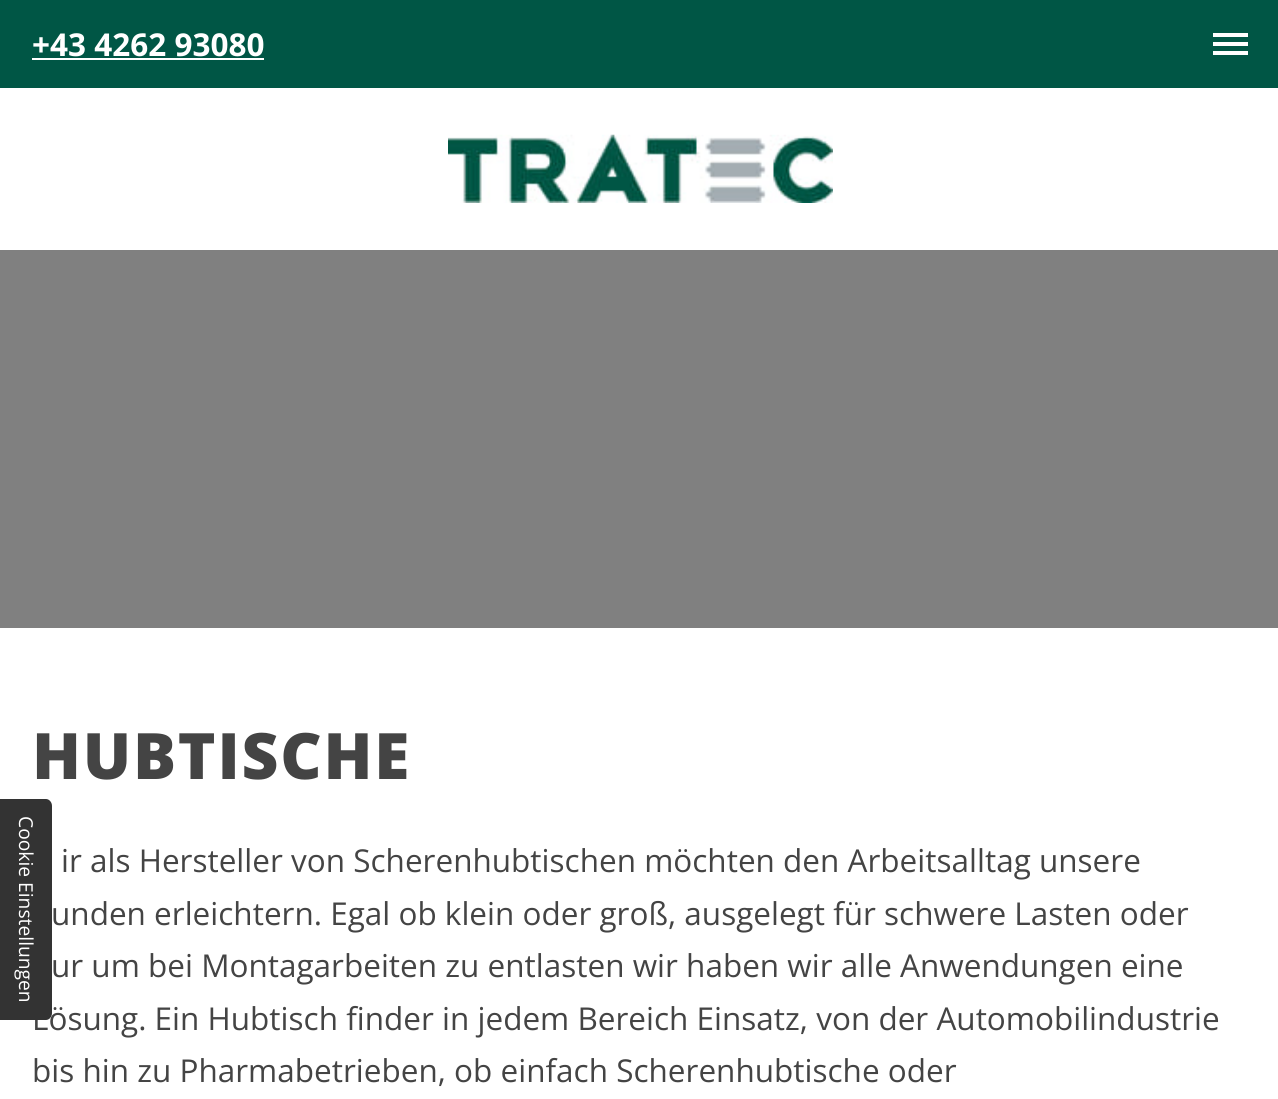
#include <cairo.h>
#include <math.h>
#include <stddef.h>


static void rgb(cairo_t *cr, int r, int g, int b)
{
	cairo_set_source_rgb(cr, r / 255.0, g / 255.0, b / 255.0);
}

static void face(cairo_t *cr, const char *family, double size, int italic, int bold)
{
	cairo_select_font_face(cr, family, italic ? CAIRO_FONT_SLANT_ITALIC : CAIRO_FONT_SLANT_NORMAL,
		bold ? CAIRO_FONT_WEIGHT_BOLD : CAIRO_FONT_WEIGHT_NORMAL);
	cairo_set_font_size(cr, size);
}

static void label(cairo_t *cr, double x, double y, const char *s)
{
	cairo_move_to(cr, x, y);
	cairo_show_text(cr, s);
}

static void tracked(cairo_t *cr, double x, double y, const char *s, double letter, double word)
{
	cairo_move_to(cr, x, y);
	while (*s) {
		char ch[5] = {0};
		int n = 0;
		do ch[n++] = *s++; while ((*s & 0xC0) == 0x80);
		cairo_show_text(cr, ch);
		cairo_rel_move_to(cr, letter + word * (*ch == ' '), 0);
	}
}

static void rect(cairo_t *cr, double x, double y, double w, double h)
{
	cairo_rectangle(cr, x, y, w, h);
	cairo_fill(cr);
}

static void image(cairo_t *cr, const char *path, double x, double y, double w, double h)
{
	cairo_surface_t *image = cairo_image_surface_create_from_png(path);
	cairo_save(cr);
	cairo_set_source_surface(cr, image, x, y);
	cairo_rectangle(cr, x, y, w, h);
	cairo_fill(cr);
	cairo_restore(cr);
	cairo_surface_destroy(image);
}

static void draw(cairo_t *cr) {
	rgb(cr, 255, 255, 255);
	cairo_paint(cr);
	rgb(cr, 128, 128, 128);
	rect(cr, 0, 250, 1278, 378);
	rgb(cr, 0, 86, 69);
	rect(cr, 0, 0, 1278, 88);
	face(cr, "Open Sans", 31.5, 0, 1);
	rgb(cr, 255, 255, 255);
	label(cr, 32, 56, "+43 4262 93080");
	rect(cr, 32, 58, 232, 2);
	rect(cr, 1213, 42, 35, 4);
	rect(cr, 1213, 33, 35, 4);
	rect(cr, 1213, 51, 35, 4);
	image(cr, "image0.png", 448, 134, 385, 69);
	face(cr, "Open Sans", 31.5, 0, 0);
	rgb(cr, 68, 68, 68);
	label(cr, 32, 1030, "Lösung. Ein Hubtisch finder in jedem Bereich Einsatz, von der Automobilindustrie");
	rgb(cr, 51, 51, 51);
	cairo_new_path(cr);
	cairo_move_to(cr, 52, 806);
	cairo_line_to(cr, 52, 1013);
	cairo_curve_to(cr, 52, 1017, 49, 1020, 46, 1020);
	cairo_line_to(cr, 0, 1020);
	cairo_line_to(cr, 0, 799);
	cairo_line_to(cr, 46, 799);
	cairo_curve_to(cr, 49, 799, 52, 802, 52, 806);
	cairo_close_path(cr);
	cairo_fill(cr);
	face(cr, "Open Sans", 19.25, 0, 0);
	rgb(cr, 255, 255, 255);
	cairo_save(cr);
	cairo_translate(cr, 19, 816);
	cairo_rotate(cr, 90 * M_PI / 180);
	label(cr, 0, 0, "Cookie Einstellungen");
	cairo_restore(cr);
	face(cr, "Open Sans ExtraBold", 64, 0, 0);
	rgb(cr, 68, 68, 68);
	tracked(cr, 32, 779, "HUBTISCHE", 1.75, 0);
	face(cr, "Open Sans", 31.5, 0, 0);
	label(cr, 61, 872, "ir als Hersteller von Scherenhubtischen möchten den Arbeitsalltag unsere");
	label(cr, 51, 925, "unden erleichtern. Egal ob klein oder groß, ausgelegt für schwere Lasten oder");
	label(cr, 51, 977, "ur um bei Montagarbeiten zu entlasten wir haben wir alle Anwendungen eine");
	label(cr, 32, 1082, "bis hin zu Pharmabetrieben, ob einfach Scherenhubtische oder");
}

int main(void) {
	cairo_surface_t *surface = cairo_image_surface_create(CAIRO_FORMAT_RGB24, 1278, 1099);
	cairo_t *cr = cairo_create(surface);
	cairo_font_options_t *options = cairo_font_options_create();
	cairo_font_options_set_hint_metrics(options, CAIRO_HINT_METRICS_OFF);
	cairo_font_options_set_hint_style(options, CAIRO_HINT_STYLE_NONE);
	cairo_set_font_options(cr, options);
	cairo_set_miter_limit(cr, 4);
	draw(cr);
	cairo_surface_write_to_png(surface, "render.png");
	cairo_font_options_destroy(options);
	cairo_destroy(cr);
	cairo_surface_destroy(surface);
	return 0;
}
